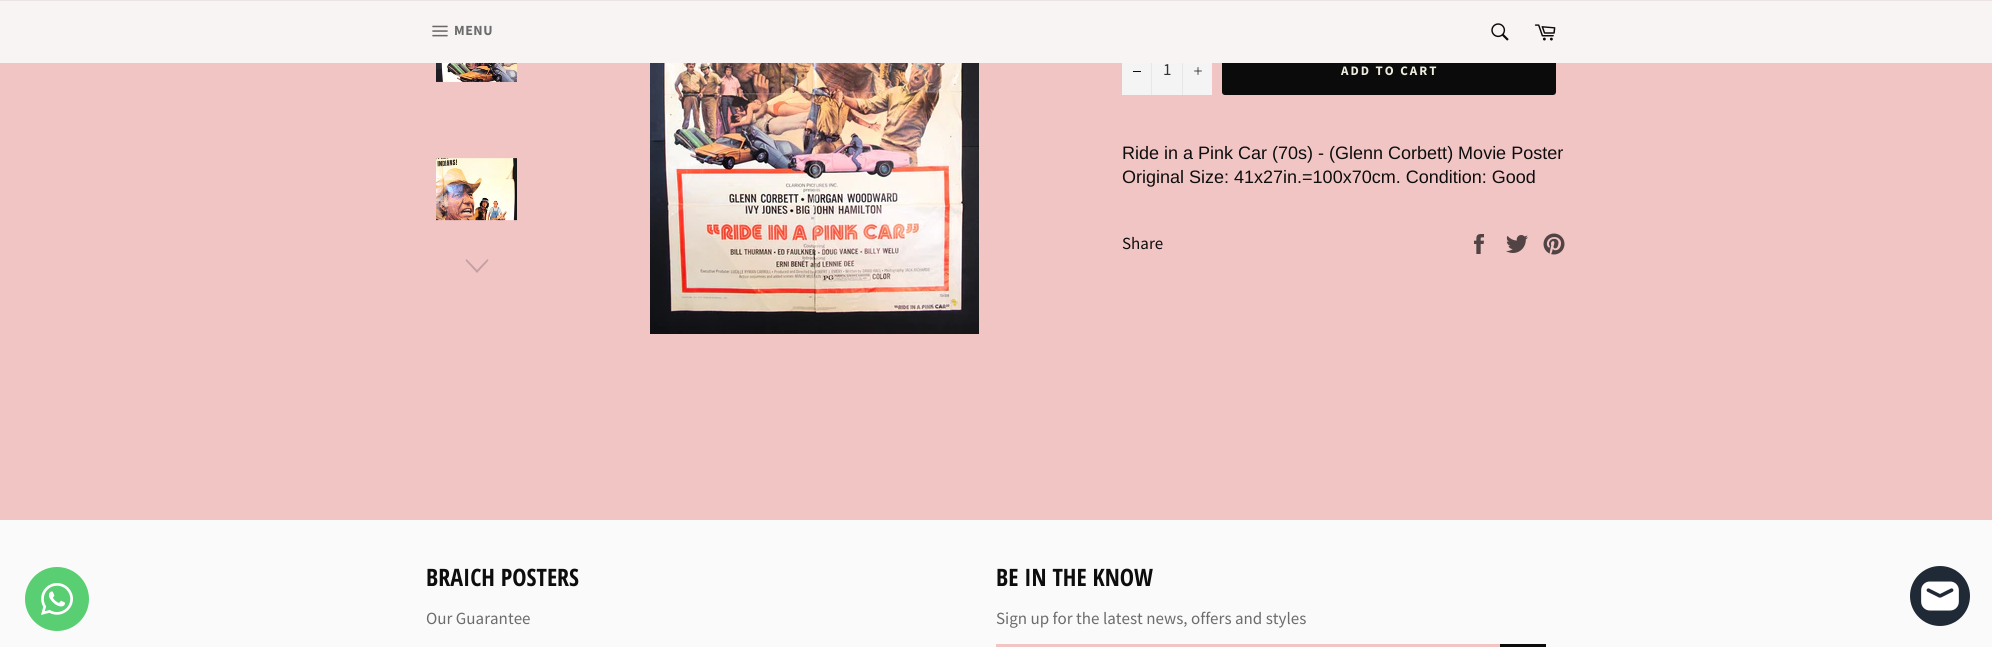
#include <cairo.h>
#include <math.h>
#include <stddef.h>


static void rgb(cairo_t *cr, int r, int g, int b)
{
	cairo_set_source_rgb(cr, r / 255.0, g / 255.0, b / 255.0);
}

static void face(cairo_t *cr, const char *family, double size, int italic, int bold)
{
	cairo_select_font_face(cr, family, italic ? CAIRO_FONT_SLANT_ITALIC : CAIRO_FONT_SLANT_NORMAL,
		bold ? CAIRO_FONT_WEIGHT_BOLD : CAIRO_FONT_WEIGHT_NORMAL);
	cairo_set_font_size(cr, size);
}

static void label(cairo_t *cr, double x, double y, const char *s)
{
	cairo_move_to(cr, x, y);
	cairo_show_text(cr, s);
}

static void tracked(cairo_t *cr, double x, double y, const char *s, double letter, double word)
{
	cairo_move_to(cr, x, y);
	while (*s) {
		char ch[5] = {0};
		int n = 0;
		do ch[n++] = *s++; while ((*s & 0xC0) == 0x80);
		cairo_show_text(cr, ch);
		cairo_rel_move_to(cr, letter + word * (*ch == ' '), 0);
	}
}

static void rect(cairo_t *cr, double x, double y, double w, double h)
{
	cairo_rectangle(cr, x, y, w, h);
	cairo_fill(cr);
}

static void rrect(cairo_t *cr, double x, double y, double w, double h, double r)
{
	cairo_new_sub_path(cr);
	cairo_arc(cr, x + w - r, y + h - r, r, 0, M_PI / 2);
	cairo_arc(cr, x + r, y + h - r, r, M_PI / 2, M_PI);
	cairo_arc(cr, x + r, y + r, r, M_PI, 1.5 * M_PI);
	cairo_arc(cr, x + w - r, y + r, r, 1.5 * M_PI, 2 * M_PI);
	cairo_close_path(cr);
}

static void image(cairo_t *cr, const char *path, double x, double y, double w, double h)
{
	cairo_surface_t *image = cairo_image_surface_create_from_png(path);
	cairo_save(cr);
	cairo_set_source_surface(cr, image, x, y);
	cairo_rectangle(cr, x, y, w, h);
	cairo_fill(cr);
	cairo_restore(cr);
	cairo_surface_destroy(image);
}

static void draw(cairo_t *cr) {
	rgb(cr, 242, 197, 197);
	cairo_paint(cr);
	rgb(cr, 12, 11, 11);
	rrect(cr, 1222, 47, 334, 48, 3);
	cairo_fill(cr);
	rgb(cr, 248, 244, 244);
	rect(cr, 0, 1, 1992, 62);
	rgb(cr, 238, 228, 228);
	rect(cr, 0, 0, 1992, 1);
	image(cr, "image0.png", 432, 25, 16, 12);
	face(cr, "Source Sans Pro", 14, 0, 1);
	rgb(cr, 108, 108, 108);
	tracked(cr, 454, 35, "MENU", 0.5, 0);
	image(cr, "image1.png", 1491, 23, 18, 18);
	image(cr, "image2.png", 1534, 24, 22, 17);
	rgb(cr, 250, 250, 250);
	rect(cr, 0, 520, 1992, 127);
	rgb(cr, 89, 206, 114);
	cairo_arc(cr, 57, 599, 32, 0, 2 * M_PI);
	cairo_fill(cr);
	image(cr, "image3.png", 41, 583, 32, 32);
	image(cr, "image4.png", 436, 63, 81, 19);
	image(cr, "image5.png", 436, 158, 81, 63);
	rgb(cr, 196, 160, 160);
	cairo_new_path(cr);
	cairo_move_to(cr, 487.5, 259);
	cairo_line_to(cr, 488.5, 260.5);
	cairo_line_to(cr, 477, 273);
	cairo_line_to(cr, 465.5, 260.5);
	cairo_line_to(cr, 466.5, 259);
	cairo_line_to(cr, 477, 270);
	cairo_close_path(cr);
	cairo_fill(cr);
	image(cr, "image6.png", 650, 63, 329, 271);
	rgb(cr, 244, 244, 244);
	rect(cr, 1122, 63, 90, 32);
	rgb(cr, 231, 231, 231);
	rect(cr, 1151, 63, 1, 32);
	rgb(cr, 13, 13, 13);
	rect(cr, 1133, 71, 8, 1);
	face(cr, "Source Sans Pro", 17, 0, 0);
	rgb(cr, 51, 51, 51);
	label(cr, 1163, 75, "1");
	rgb(cr, 231, 231, 231);
	rect(cr, 1182, 63, 1, 32);
	image(cr, "image7.png", 1194, 67, 8, 8);
	face(cr, "Source Sans Pro", 13, 0, 1);
	rgb(cr, 237, 236, 221);
	tracked(cr, 1341, 75, "ADD TO CART", 2, 0);
	face(cr, "Liberation Sans", 18, 0, 0);
	rgb(cr, 13, 13, 13);
	label(cr, 1122, 159, "Ride in a Pink Car (70s) - (Glenn Corbett) Movie Poster");
	label(cr, 1122, 183, "Original Size: 41x27in.=100x70cm. Condition: Good");
	face(cr, "Source Sans Pro", 17, 0, 0);
	label(cr, 1122, 249, "Share");
	image(cr, "image8.png", 1474, 234, 10, 20);
	image(cr, "image9.png", 1506, 235, 22, 18);
	image(cr, "image10.png", 1543, 233, 22, 22);
	face(cr, "Open Sans Condensed", 24, 0, 1);
	label(cr, 426, 586, "BRAICH POSTERS");
	face(cr, "Source Sans Pro", 17, 0, 0);
	rgb(cr, 108, 108, 108);
	label(cr, 426, 624, "Our Guarantee");
	face(cr, "Open Sans Condensed", 24, 0, 1);
	rgb(cr, 13, 13, 13);
	label(cr, 996, 586, "BE IN THE KNOW");
	face(cr, "Source Sans Pro", 17, 0, 0);
	rgb(cr, 108, 108, 108);
	label(cr, 996, 624, "Sign up for the latest news, offers and styles");
	rgb(cr, 242, 197, 197);
	rect(cr, 996, 644, 504, 3);
	rgb(cr, 12, 11, 11);
	rect(cr, 1500, 644, 46, 3);
	rgb(cr, 32, 42, 54);
	cairo_new_path(cr);
	cairo_arc(cr, 1940, 596, 30, 0, 2 * M_PI);
	cairo_fill(cr);
	image(cr, "image11.png", 1921, 581, 38, 30);
}

int main(void) {
	cairo_surface_t *surface = cairo_image_surface_create(CAIRO_FORMAT_RGB24, 1992, 647);
	cairo_t *cr = cairo_create(surface);
	cairo_font_options_t *options = cairo_font_options_create();
	cairo_font_options_set_hint_metrics(options, CAIRO_HINT_METRICS_OFF);
	cairo_font_options_set_hint_style(options, CAIRO_HINT_STYLE_NONE);
	cairo_set_font_options(cr, options);
	cairo_set_miter_limit(cr, 4);
	draw(cr);
	cairo_surface_write_to_png(surface, "render.png");
	cairo_font_options_destroy(options);
	cairo_destroy(cr);
	cairo_surface_destroy(surface);
	return 0;
}
